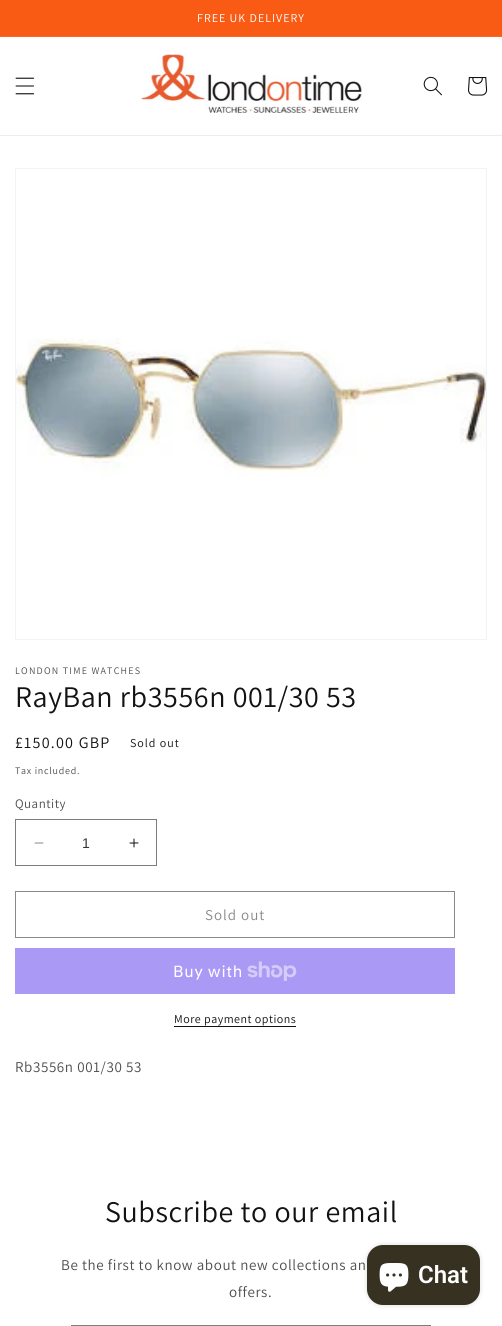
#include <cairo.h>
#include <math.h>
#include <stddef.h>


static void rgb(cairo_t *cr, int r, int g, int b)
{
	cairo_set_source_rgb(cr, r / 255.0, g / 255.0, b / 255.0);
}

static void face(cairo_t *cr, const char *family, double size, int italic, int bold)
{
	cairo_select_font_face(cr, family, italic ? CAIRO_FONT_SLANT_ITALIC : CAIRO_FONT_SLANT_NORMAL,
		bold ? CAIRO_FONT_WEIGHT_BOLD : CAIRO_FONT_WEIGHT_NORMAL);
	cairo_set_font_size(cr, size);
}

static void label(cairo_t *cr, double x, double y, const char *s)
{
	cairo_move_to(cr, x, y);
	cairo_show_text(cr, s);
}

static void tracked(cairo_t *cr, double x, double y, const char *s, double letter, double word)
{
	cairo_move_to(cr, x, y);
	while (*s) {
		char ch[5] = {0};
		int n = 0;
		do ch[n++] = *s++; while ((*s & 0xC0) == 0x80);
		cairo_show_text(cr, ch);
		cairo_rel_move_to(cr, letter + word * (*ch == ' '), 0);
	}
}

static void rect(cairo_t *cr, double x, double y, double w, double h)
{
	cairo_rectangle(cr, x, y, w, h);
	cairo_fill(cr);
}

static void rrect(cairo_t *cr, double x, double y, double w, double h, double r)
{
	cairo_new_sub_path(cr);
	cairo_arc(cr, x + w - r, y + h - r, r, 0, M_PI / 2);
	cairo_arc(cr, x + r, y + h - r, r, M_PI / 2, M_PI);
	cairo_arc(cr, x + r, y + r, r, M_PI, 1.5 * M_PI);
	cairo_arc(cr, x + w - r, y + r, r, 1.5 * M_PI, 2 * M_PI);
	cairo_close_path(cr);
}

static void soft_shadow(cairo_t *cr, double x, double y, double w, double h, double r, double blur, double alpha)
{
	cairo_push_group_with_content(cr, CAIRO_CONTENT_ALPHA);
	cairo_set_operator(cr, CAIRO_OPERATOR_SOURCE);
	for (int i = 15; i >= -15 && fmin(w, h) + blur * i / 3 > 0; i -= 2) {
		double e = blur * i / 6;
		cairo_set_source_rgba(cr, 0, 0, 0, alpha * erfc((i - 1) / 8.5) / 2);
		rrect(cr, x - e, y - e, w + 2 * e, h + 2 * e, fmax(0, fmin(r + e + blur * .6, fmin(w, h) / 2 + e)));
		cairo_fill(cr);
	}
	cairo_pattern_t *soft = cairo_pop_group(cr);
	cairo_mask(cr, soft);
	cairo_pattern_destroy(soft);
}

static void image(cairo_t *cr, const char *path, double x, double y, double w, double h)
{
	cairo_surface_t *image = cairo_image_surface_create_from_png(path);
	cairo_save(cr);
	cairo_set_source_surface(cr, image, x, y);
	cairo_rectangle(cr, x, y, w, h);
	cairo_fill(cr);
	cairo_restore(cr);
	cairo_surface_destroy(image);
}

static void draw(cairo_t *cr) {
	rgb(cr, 255, 255, 255);
	cairo_paint(cr);
	rgb(cr, 249, 91, 20);
	rect(cr, 0, 0, 502, 36);
	rgb(cr, 249, 104, 39);
	rect(cr, 0, 36, 502, 1);
	face(cr, "Assistant", 12, 0, 0);
	rgb(cr, 255, 255, 255);
	tracked(cr, 197, 22, "FREE UK DELIVERY", 1, 0);
	rgb(cr, 236, 236, 236);
	rect(cr, 0, 135, 502, 1);
	image(cr, "image0.png", 15, 77, 20, 18);
	image(cr, "image1.png", 141, 54, 221, 59);
	image(cr, "image2.png", 423, 76, 19, 20);
	image(cr, "image3.png", 468, 77, 20, 19);
	cairo_rectangle(cr, 15.5, 168.5, 471, 471);
	rgb(cr, 243, 243, 243);
	cairo_set_line_width(cr, 1);
	cairo_stroke(cr);
	image(cr, "image4.png", 16, 338, 470, 139);
	face(cr, "Assistant", 10, 0, 0);
	rgb(cr, 77, 77, 77);
	tracked(cr, 15, 674, "LONDON TIME WATCHES", 1.25, 0);
	face(cr, "Assistant", 30, 0, 0);
	rgb(cr, 18, 18, 18);
	tracked(cr, 15, 707, "RayBan rb3556n 001/30 53", 0.6, 0);
	face(cr, "Assistant", 16, 0, 0);
	tracked(cr, 15, 748, "£150.00 GBP", 1.25, 0);
	face(cr, "Assistant", 12, 0, 0);
	tracked(cr, 130, 747, "Sold out", 1, 0);
	face(cr, "Assistant", 10, 0, 0);
	rgb(cr, 77, 77, 77);
	tracked(cr, 15, 774, "Tax included.", 0.75, 0);
	face(cr, "Assistant", 13, 0, 0);
	tracked(cr, 15, 808, "Quantity", 0.5, 0);
	image(cr, "image5.png", 34, 842, 10, 2);
	image(cr, "image6.png", 129, 838, 10, 10);
	cairo_rectangle(cr, 15.5, 819.5, 141, 46);
	rgb(cr, 125, 125, 125);
	cairo_stroke(cr);
	face(cr, "Liberation Sans", 14, 0, 0);
	rgb(cr, 54, 54, 54);
	label(cr, 82, 848, "1");
	cairo_rectangle(cr, 15.5, 891.5, 439, 46);
	rgb(cr, 137, 137, 137);
	cairo_stroke(cr);
	face(cr, "Assistant", 15, 0, 0);
	tracked(cr, 205, 920, "Sold out", 1, 0);
	rgb(cr, 170, 153, 245);
	rect(cr, 15, 948, 440, 46);
	face(cr, "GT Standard", 16, 0, 0);
	rgb(cr, 255, 255, 255);
	tracked(cr, 173, 977, "Buy with", 0.6, 0);
	image(cr, "image7.png", 247, 961, 50, 20);
	face(cr, "Assistant", 12, 0, 0);
	rgb(cr, 18, 18, 18);
	tracked(cr, 174, 1023, "More payment options", 0.5, 0);
	rect(cr, 174, 1026, 122, 1);
	face(cr, "Assistant", 15, 0, 0);
	rgb(cr, 77, 77, 77);
	tracked(cr, 15, 1072, "Rb3556n 001/30 53", 0.6, 0);
	face(cr, "Assistant", 30, 0, 0);
	rgb(cr, 18, 18, 18);
	tracked(cr, 105, 1222, "Subscribe to our email", 0.6, 0);
	face(cr, "Assistant", 15, 0, 0);
	rgb(cr, 77, 77, 77);
	tracked(cr, 61, 1270, "Be the first to know about new collections an", 0.6, 0);
	tracked(cr, 229, 1297, "offers.", 0.6, 0);
	cairo_rectangle(cr, 71.5, 1325.5, 359, 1);
	rgb(cr, 125, 125, 125);
	cairo_stroke(cr);
	rgb(cr, 0, 0, 0);
	soft_shadow(cr, 367, 1245, 113, 60, 16, 2.5, 0.15);
	rgb(cr, 54, 49, 32);
	rrect(cr, 367, 1245, 113, 60, 16);
	cairo_fill(cr);
	image(cr, "image8.png", 379, 1263, 30, 29);
	face(cr, "Roboto SemiBold", 24, 0, 0);
	rgb(cr, 255, 255, 255);
	label(cr, 418, 1283, "Chat");
}

int main(void) {
	cairo_surface_t *surface = cairo_image_surface_create(CAIRO_FORMAT_RGB24, 502, 1326);
	cairo_t *cr = cairo_create(surface);
	cairo_font_options_t *options = cairo_font_options_create();
	cairo_font_options_set_hint_metrics(options, CAIRO_HINT_METRICS_OFF);
	cairo_font_options_set_hint_style(options, CAIRO_HINT_STYLE_NONE);
	cairo_set_font_options(cr, options);
	cairo_set_miter_limit(cr, 4);
	draw(cr);
	cairo_surface_write_to_png(surface, "render.png");
	cairo_font_options_destroy(options);
	cairo_destroy(cr);
	cairo_surface_destroy(surface);
	return 0;
}
